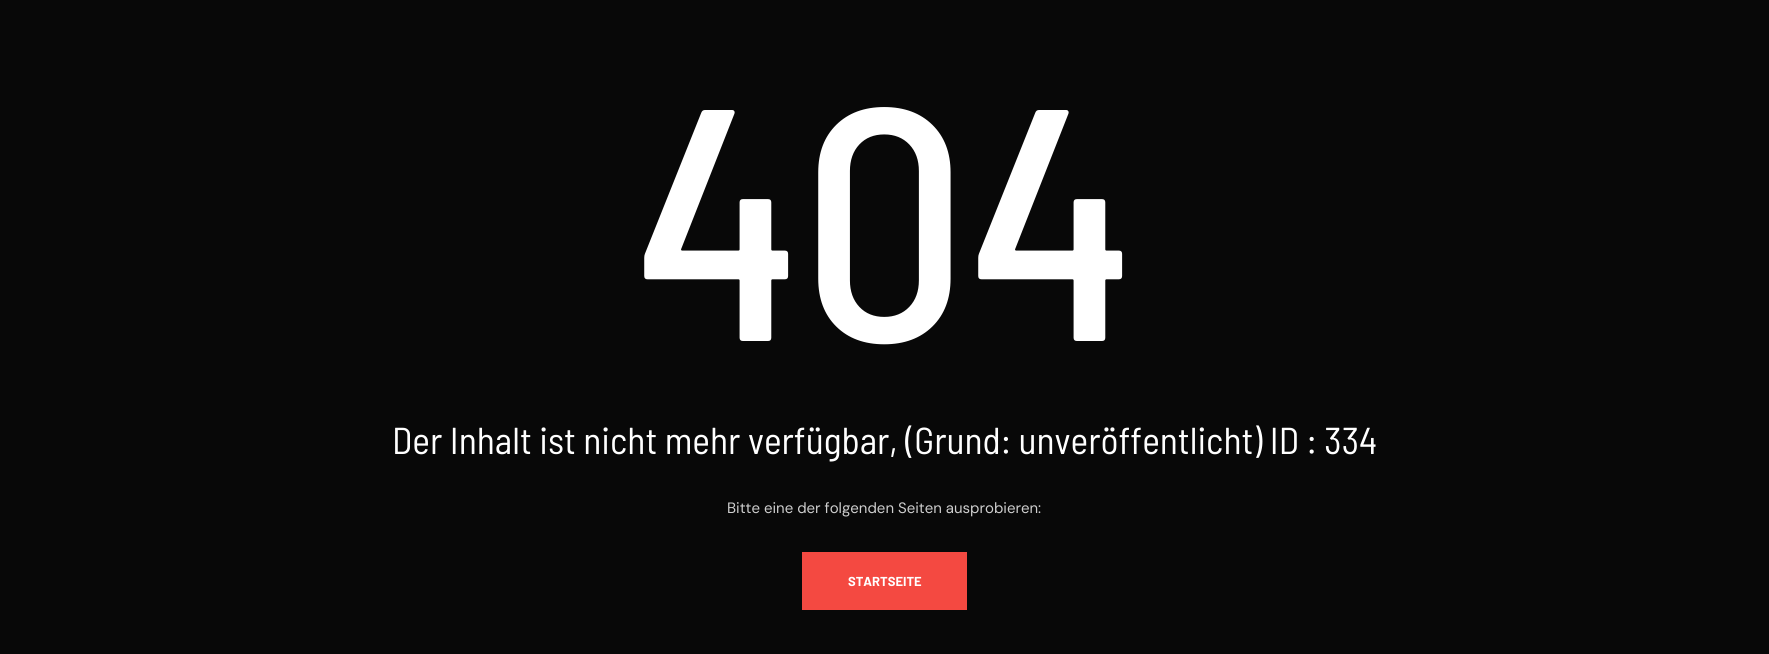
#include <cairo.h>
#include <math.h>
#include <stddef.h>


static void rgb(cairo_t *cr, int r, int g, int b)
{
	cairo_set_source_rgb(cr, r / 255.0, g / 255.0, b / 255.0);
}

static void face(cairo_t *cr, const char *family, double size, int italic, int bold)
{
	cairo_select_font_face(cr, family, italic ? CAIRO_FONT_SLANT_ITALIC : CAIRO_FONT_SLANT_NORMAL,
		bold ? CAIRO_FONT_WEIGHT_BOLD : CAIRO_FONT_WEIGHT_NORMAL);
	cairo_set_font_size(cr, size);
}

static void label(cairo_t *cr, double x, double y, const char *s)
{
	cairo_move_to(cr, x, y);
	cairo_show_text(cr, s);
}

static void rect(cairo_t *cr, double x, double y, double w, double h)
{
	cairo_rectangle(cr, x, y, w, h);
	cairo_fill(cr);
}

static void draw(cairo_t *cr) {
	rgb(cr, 8, 8, 8);
	cairo_paint(cr);
	face(cr, "Barlow Semi Condensed Medium", 330, 0, 0);
	rgb(cr, 255, 255, 255);
	label(cr, 634, 341, "404");
	face(cr, "Barlow Semi Condensed", 37.5, 0, 0);
	label(cr, 392, 454, "Der Inhalt ist nicht mehr verfügbar, (Grund: unveröffentlicht) ID : 334");
	face(cr, "DM Sans", 15, 0, 0);
	rgb(cr, 206, 206, 206);
	label(cr, 727, 513, "Bitte eine der folgenden Seiten ausprobieren:");
	rgb(cr, 244, 73, 65);
	rect(cr, 802, 552, 165, 58);
	face(cr, "Barlow", 13, 0, 1);
	rgb(cr, 255, 255, 255);
	label(cr, 848, 586, "STARTSEITE");
}

int main(void) {
	cairo_surface_t *surface = cairo_image_surface_create(CAIRO_FORMAT_RGB24, 1769, 654);
	cairo_t *cr = cairo_create(surface);
	cairo_font_options_t *options = cairo_font_options_create();
	cairo_font_options_set_hint_metrics(options, CAIRO_HINT_METRICS_OFF);
	cairo_font_options_set_hint_style(options, CAIRO_HINT_STYLE_NONE);
	cairo_set_font_options(cr, options);
	cairo_set_miter_limit(cr, 4);
	draw(cr);
	cairo_surface_write_to_png(surface, "render.png");
	cairo_font_options_destroy(options);
	cairo_destroy(cr);
	cairo_surface_destroy(surface);
	return 0;
}
